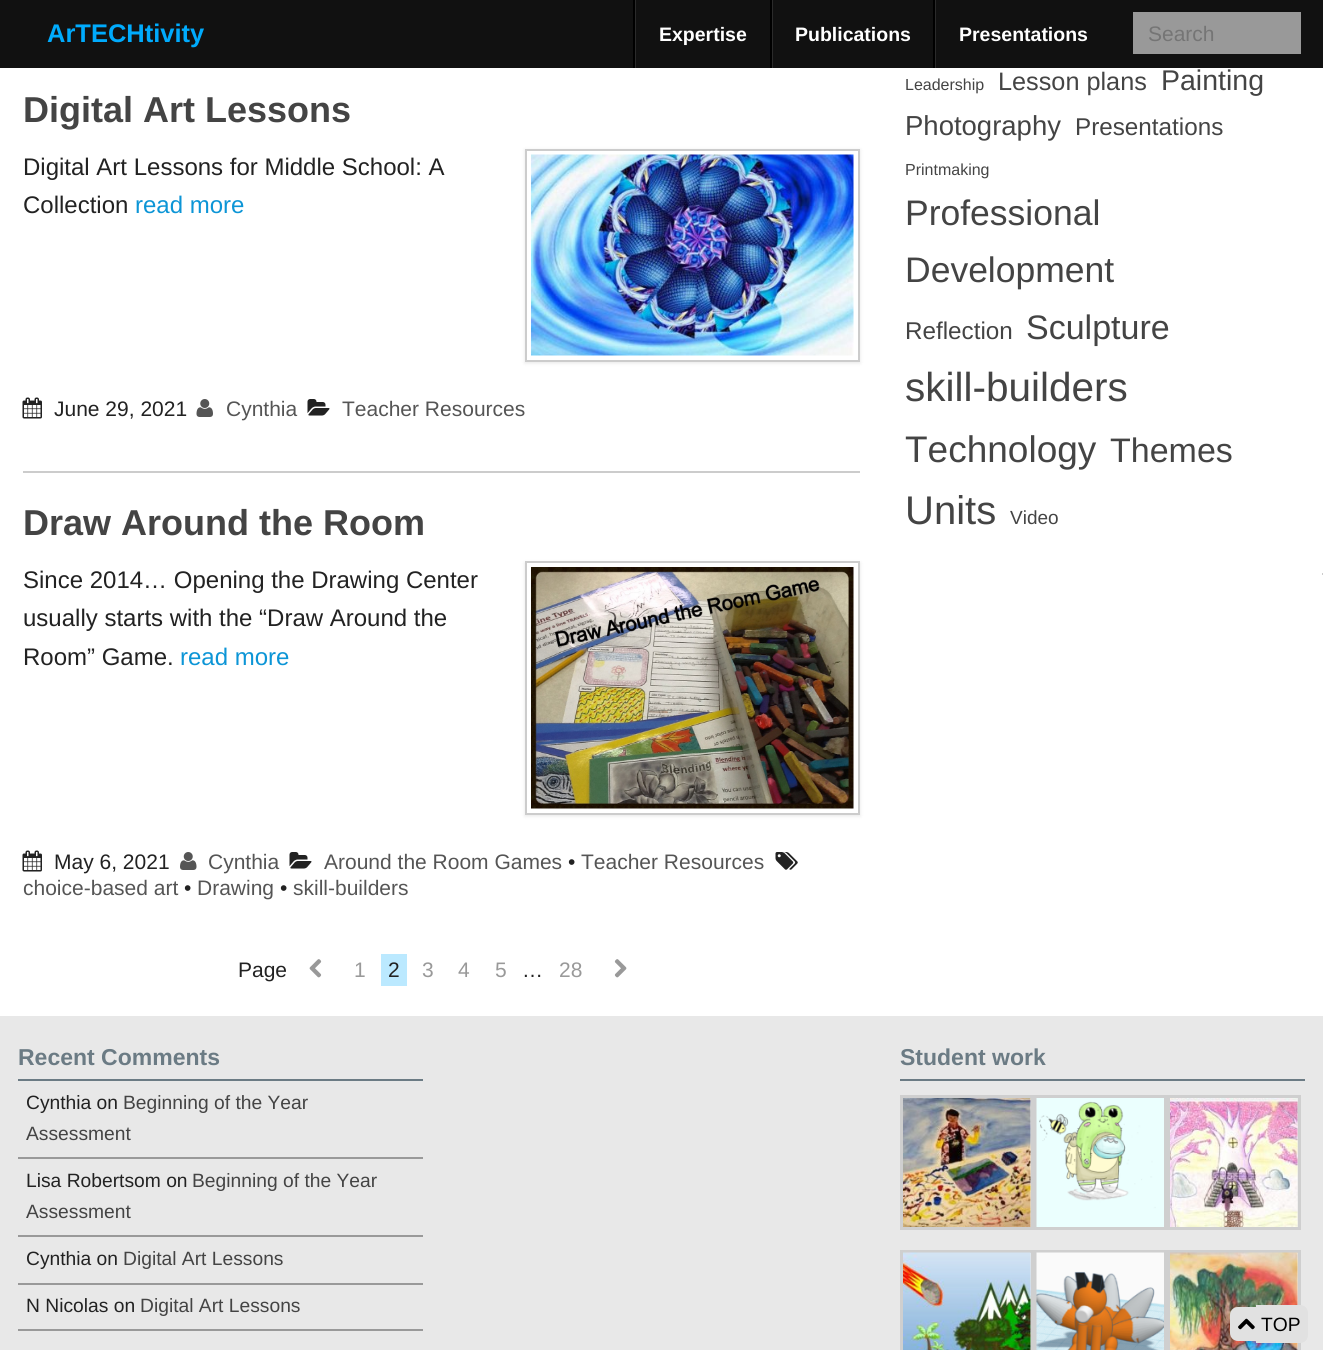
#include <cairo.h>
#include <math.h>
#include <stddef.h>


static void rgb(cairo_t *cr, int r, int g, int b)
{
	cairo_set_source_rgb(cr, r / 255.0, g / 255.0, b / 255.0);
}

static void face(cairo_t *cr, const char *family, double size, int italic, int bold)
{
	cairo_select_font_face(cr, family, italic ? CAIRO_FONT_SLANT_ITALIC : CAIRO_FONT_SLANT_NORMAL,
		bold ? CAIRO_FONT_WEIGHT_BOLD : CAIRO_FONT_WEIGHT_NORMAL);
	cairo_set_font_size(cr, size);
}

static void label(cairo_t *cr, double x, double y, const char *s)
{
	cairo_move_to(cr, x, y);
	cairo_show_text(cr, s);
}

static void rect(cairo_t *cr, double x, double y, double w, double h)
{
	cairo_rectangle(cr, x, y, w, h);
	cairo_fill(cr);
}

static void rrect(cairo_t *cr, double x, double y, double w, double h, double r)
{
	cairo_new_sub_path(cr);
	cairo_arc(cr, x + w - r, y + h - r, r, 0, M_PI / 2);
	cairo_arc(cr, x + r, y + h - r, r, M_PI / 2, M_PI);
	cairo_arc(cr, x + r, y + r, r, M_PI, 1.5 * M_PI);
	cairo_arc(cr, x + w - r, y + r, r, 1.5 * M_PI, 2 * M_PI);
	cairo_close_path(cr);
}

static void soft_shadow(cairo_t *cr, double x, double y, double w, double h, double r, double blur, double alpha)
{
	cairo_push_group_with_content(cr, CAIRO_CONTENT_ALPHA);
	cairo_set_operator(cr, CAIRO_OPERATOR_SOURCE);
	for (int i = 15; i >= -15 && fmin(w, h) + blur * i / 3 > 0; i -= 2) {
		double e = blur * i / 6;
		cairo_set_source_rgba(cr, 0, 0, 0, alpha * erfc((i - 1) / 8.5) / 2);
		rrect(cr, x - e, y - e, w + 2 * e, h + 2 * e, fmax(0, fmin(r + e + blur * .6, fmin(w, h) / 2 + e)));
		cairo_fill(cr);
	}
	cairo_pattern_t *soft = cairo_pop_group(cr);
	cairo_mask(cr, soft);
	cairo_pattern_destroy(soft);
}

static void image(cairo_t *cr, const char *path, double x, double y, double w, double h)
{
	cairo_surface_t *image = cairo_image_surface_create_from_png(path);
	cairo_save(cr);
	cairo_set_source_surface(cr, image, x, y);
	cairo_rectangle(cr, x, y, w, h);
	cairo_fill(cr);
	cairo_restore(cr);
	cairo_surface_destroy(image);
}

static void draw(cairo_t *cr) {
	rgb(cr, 255, 255, 255);
	cairo_paint(cr);
	rgb(cr, 17, 17, 17);
	rect(cr, 0, 0, 1323, 68);
	face(cr, "Liberation Sans", 25.5, 0, 1);
	rgb(cr, 0, 171, 253);
	label(cr, 47, 42, "ArTECHtivity");
	rgb(cr, 43, 43, 43);
	rect(cr, 635, 0, 1, 68);
	rgb(cr, 0, 0, 0);
	rect(cr, 633, 0, 2, 68);
	face(cr, "Liberation Sans", 19.5, 0, 1);
	rgb(cr, 255, 255, 255);
	label(cr, 659, 41, "Expertise");
	rgb(cr, 43, 43, 43);
	rect(cr, 772, 0, 1, 68);
	rgb(cr, 0, 0, 0);
	rect(cr, 770, 0, 2, 68);
	rgb(cr, 255, 255, 255);
	label(cr, 795, 41, "Publications");
	rgb(cr, 43, 43, 43);
	rect(cr, 935, 0, 1, 68);
	rgb(cr, 0, 0, 0);
	rect(cr, 933, 0, 2, 68);
	rgb(cr, 255, 255, 255);
	label(cr, 959, 41, "Presentations");
	rgb(cr, 153, 153, 153);
	rect(cr, 1133, 12, 168, 42);
	face(cr, "Liberation Sans", 21, 0, 0);
	rgb(cr, 117, 117, 117);
	label(cr, 1148, 41, "Search");
	face(cr, "Liberation Sans", 36, 0, 1);
	rgb(cr, 68, 68, 68);
	label(cr, 23, 122, "Digital Art Lessons");
	face(cr, "Liberation Sans", 24, 0, 0);
	rgb(cr, 34, 34, 34);
	label(cr, 23, 175, "Digital Art Lessons for Middle School: A");
	label(cr, 23, 213, "Collection");
	rgb(cr, 12, 149, 214);
	label(cr, 135, 213, "read more");
	rgb(cr, 0, 0, 0);
	soft_shadow(cr, 525, 150, 335, 213, 0, 2, 0.1);
	rgb(cr, 255, 255, 255);
	cairo_rectangle(cr, 526, 150, 333, 211);
	cairo_fill_preserve(cr);
	rgb(cr, 204, 204, 204);
	cairo_stroke(cr);
	image(cr, "image0.png", 531, 154, 323, 202);
	image(cr, "image1.png", 22, 397, 20, 22);
	face(cr, "Liberation Sans", 21, 0, 0);
	rgb(cr, 34, 34, 34);
	label(cr, 54, 416, "June 29, 2021");
	image(cr, "image2.png", 196, 399, 17, 18);
	rgb(cr, 85, 85, 85);
	label(cr, 226, 416, "Cynthia");
	image(cr, "image3.png", 307, 399, 23, 17);
	label(cr, 342, 416, "Teacher Resources");
	rgb(cr, 204, 204, 204);
	rect(cr, 23, 471, 837, 2);
	face(cr, "Liberation Sans", 36, 0, 1);
	rgb(cr, 68, 68, 68);
	label(cr, 23, 535, "Draw Around the Room");
	face(cr, "Liberation Sans", 24, 0, 0);
	rgb(cr, 34, 34, 34);
	label(cr, 23, 588, "Since 2014… Opening the Drawing Center");
	label(cr, 23, 626, "usually starts with the “Draw Around the");
	label(cr, 23, 665, "Room” Game.");
	rgb(cr, 12, 149, 214);
	label(cr, 180, 665, "read more");
	rgb(cr, 0, 0, 0);
	soft_shadow(cr, 525, 563, 335, 253, 0, 2, 0.1);
	rgb(cr, 255, 255, 255);
	cairo_rectangle(cr, 526, 562, 333, 252);
	cairo_fill_preserve(cr);
	rgb(cr, 204, 204, 204);
	cairo_stroke(cr);
	image(cr, "image4.png", 531, 567, 323, 242);
	image(cr, "image1.png", 22, 850, 20, 22);
	face(cr, "Liberation Sans", 21, 0, 0);
	rgb(cr, 34, 34, 34);
	label(cr, 54, 869, "May 6, 2021");
	image(cr, "image5.png", 180, 852, 17, 18);
	rgb(cr, 85, 85, 85);
	label(cr, 208, 869, "Cynthia");
	image(cr, "image3.png", 289, 852, 23, 17);
	label(cr, 324, 869, "Around the Room Games");
	rgb(cr, 34, 34, 34);
	label(cr, 568, 869, "•");
	rgb(cr, 85, 85, 85);
	label(cr, 581, 869, "Teacher Resources");
	image(cr, "image6.png", 775, 852, 23, 18);
	label(cr, 23, 895, "choice-based art");
	rgb(cr, 34, 34, 34);
	label(cr, 184, 895, "•");
	rgb(cr, 85, 85, 85);
	label(cr, 197, 895, "Drawing");
	rgb(cr, 34, 34, 34);
	label(cr, 280, 895, "•");
	rgb(cr, 85, 85, 85);
	label(cr, 293, 895, "skill-builders");
	rgb(cr, 34, 34, 34);
	label(cr, 238, 977, "Page");
	image(cr, "image7.png", 309, 959, 13, 19);
	rgb(cr, 153, 153, 153);
	label(cr, 354, 977, "1");
	rgb(cr, 187, 233, 255);
	rect(cr, 381, 954, 26, 32);
	rgb(cr, 34, 34, 34);
	label(cr, 388, 977, "2");
	rgb(cr, 153, 153, 153);
	label(cr, 422, 977, "3");
	label(cr, 458, 977, "4");
	label(cr, 495, 977, "5");
	rgb(cr, 34, 34, 34);
	label(cr, 522, 977, "…");
	rgb(cr, 153, 153, 153);
	label(cr, 559, 977, "28");
	image(cr, "image8.png", 614, 959, 13, 19);
	face(cr, "Liberation Sans", 16, 0, 0);
	rgb(cr, 68, 68, 68);
	label(cr, 905, 90, "Leadership");
	face(cr, "Liberation Sans", 25.25, 0, 0);
	label(cr, 998, 90, "Lesson plans");
	face(cr, "Liberation Sans", 28.5, 0, 0);
	label(cr, 1161, 90, "Painting");
	face(cr, "Liberation Sans", 27.5, 0, 0);
	label(cr, 905, 135, "Photography");
	face(cr, "Liberation Sans", 24.25, 0, 0);
	label(cr, 1075, 135, "Presentations");
	face(cr, "Liberation Sans", 16, 0, 0);
	label(cr, 905, 175, "Printmaking");
	face(cr, "Liberation Sans", 35.5, 0, 0);
	label(cr, 905, 225, "Professional");
	label(cr, 905, 282, "Development");
	face(cr, "Liberation Sans", 24.25, 0, 0);
	label(cr, 905, 339, "Reflection");
	face(cr, "Liberation Sans", 34, 0, 0);
	label(cr, 1026, 339, "Sculpture");
	face(cr, "Liberation Sans", 40.5, 0, 0);
	label(cr, 905, 401, "skill-builders");
	face(cr, "Liberation Sans", 37, 0, 0);
	label(cr, 905, 462, "Technology");
	face(cr, "Liberation Sans", 34, 0, 0);
	label(cr, 1110, 462, "Themes");
	face(cr, "Liberation Sans", 40, 0, 0);
	label(cr, 905, 524, "Units");
	face(cr, "Liberation Sans", 19, 0, 0);
	label(cr, 1010, 524, "Video");
	rgb(cr, 204, 204, 204);
	rect(cr, 1322, 573, 1, 2);
	rgb(cr, 232, 232, 232);
	rect(cr, 0, 1016, 1323, 334);
	rgb(cr, 107, 123, 132);
	rect(cr, 18, 1079, 405, 2);
	face(cr, "Liberation Sans", 23, 0, 1);
	label(cr, 18, 1065, "Recent Comments");
	rgb(cr, 153, 153, 153);
	rect(cr, 18, 1157, 405, 2);
	face(cr, "Liberation Sans", 19.25, 0, 0);
	rgb(cr, 34, 34, 34);
	label(cr, 26, 1109, "Cynthia on");
	rgb(cr, 68, 68, 68);
	label(cr, 123, 1109, "Beginning of the Year");
	label(cr, 26, 1140, "Assessment");
	rgb(cr, 153, 153, 153);
	rect(cr, 18, 1235, 405, 2);
	rgb(cr, 34, 34, 34);
	label(cr, 26, 1187, "Lisa Robertsom on");
	rgb(cr, 68, 68, 68);
	label(cr, 192, 1187, "Beginning of the Year");
	label(cr, 26, 1218, "Assessment");
	rgb(cr, 153, 153, 153);
	rect(cr, 18, 1283, 405, 2);
	rgb(cr, 34, 34, 34);
	label(cr, 26, 1265, "Cynthia on");
	rgb(cr, 68, 68, 68);
	label(cr, 123, 1265, "Digital Art Lessons");
	rgb(cr, 153, 153, 153);
	rect(cr, 18, 1329, 405, 2);
	rgb(cr, 34, 34, 34);
	label(cr, 26, 1312, "N Nicolas on");
	rgb(cr, 68, 68, 68);
	label(cr, 140, 1312, "Digital Art Lessons");
	rgb(cr, 107, 123, 132);
	rect(cr, 900, 1079, 405, 2);
	face(cr, "Liberation Sans", 23, 0, 1);
	label(cr, 900, 1065, "Student work");
	cairo_rectangle(cr, 901.5, 1096.5, 131, 132);
	rgb(cr, 207, 207, 207);
	cairo_set_line_width(cr, 3);
	cairo_stroke(cr);
	image(cr, "image9.png", 903, 1098, 128, 129);
	cairo_rectangle(cr, 1035.5, 1096.5, 130, 132);
	cairo_stroke(cr);
	image(cr, "image10.png", 1036, 1098, 128, 129);
	cairo_rectangle(cr, 1168.5, 1096.5, 131, 132);
	cairo_stroke(cr);
	image(cr, "image11.png", 1170, 1098, 128, 129);
	cairo_rectangle(cr, 901.5, 1251.5, 131, 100);
	cairo_stroke(cr);
	image(cr, "image12.png", 903, 1252, 128, 98);
	cairo_rectangle(cr, 1035.5, 1251.5, 130, 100);
	cairo_stroke(cr);
	image(cr, "image13.png", 1036, 1252, 128, 98);
	cairo_rectangle(cr, 1168.5, 1251.5, 131, 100);
	cairo_stroke(cr);
	image(cr, "image14.png", 1170, 1252, 128, 98);
	rgb(cr, 225, 225, 225);
	cairo_new_path(cr);
	cairo_move_to(cr, 1238, 1307);
	cairo_line_to(cr, 1256, 1307);
	cairo_line_to(cr, 1256, 1341);
	cairo_line_to(cr, 1238, 1341);
	cairo_curve_to(cr, 1233.5, 1341, 1230, 1337.5, 1230, 1333);
	cairo_line_to(cr, 1230, 1315);
	cairo_curve_to(cr, 1230, 1310.5, 1233.5, 1307, 1238, 1307);
	cairo_close_path(cr);
	cairo_fill(cr);
	cairo_new_path(cr);
	cairo_move_to(cr, 1256, 1305);
	cairo_line_to(cr, 1300, 1305);
	cairo_curve_to(cr, 1304.5, 1305, 1308, 1308.5, 1308, 1313);
	cairo_line_to(cr, 1308, 1335);
	cairo_curve_to(cr, 1308, 1339.5, 1304.5, 1343, 1300, 1343);
	cairo_line_to(cr, 1256, 1343);
	cairo_close_path(cr);
	cairo_fill(cr);
	image(cr, "image15.png", 1238, 1318, 17, 12);
	face(cr, "Liberation Sans", 19.25, 0, 0);
	rgb(cr, 0, 0, 0);
	label(cr, 1261, 1331, "TOP");
}

int main(void) {
	cairo_surface_t *surface = cairo_image_surface_create(CAIRO_FORMAT_RGB24, 1323, 1350);
	cairo_t *cr = cairo_create(surface);
	cairo_font_options_t *options = cairo_font_options_create();
	cairo_font_options_set_hint_metrics(options, CAIRO_HINT_METRICS_OFF);
	cairo_font_options_set_hint_style(options, CAIRO_HINT_STYLE_NONE);
	cairo_set_font_options(cr, options);
	cairo_set_miter_limit(cr, 4);
	draw(cr);
	cairo_surface_write_to_png(surface, "render.png");
	cairo_font_options_destroy(options);
	cairo_destroy(cr);
	cairo_surface_destroy(surface);
	return 0;
}
